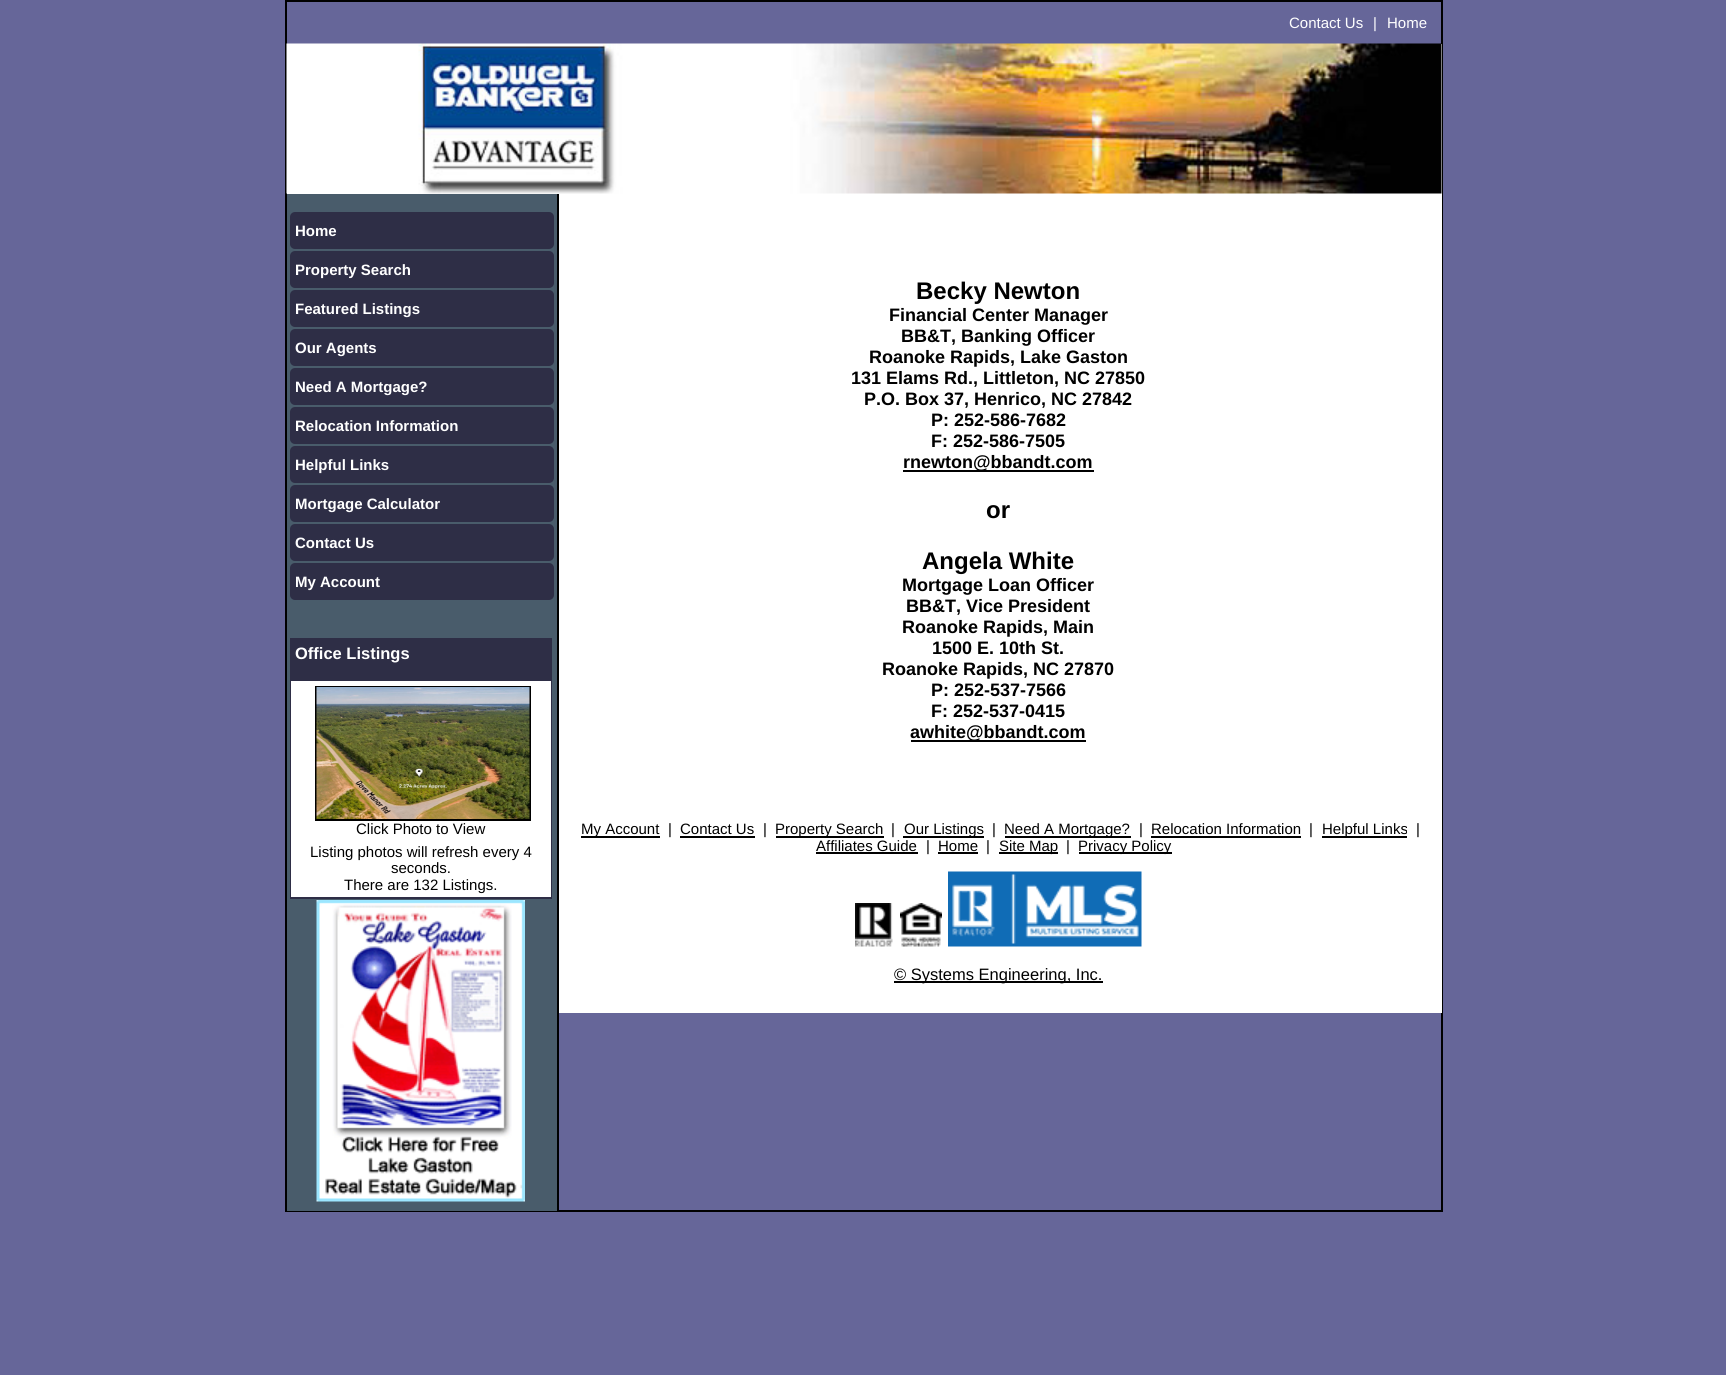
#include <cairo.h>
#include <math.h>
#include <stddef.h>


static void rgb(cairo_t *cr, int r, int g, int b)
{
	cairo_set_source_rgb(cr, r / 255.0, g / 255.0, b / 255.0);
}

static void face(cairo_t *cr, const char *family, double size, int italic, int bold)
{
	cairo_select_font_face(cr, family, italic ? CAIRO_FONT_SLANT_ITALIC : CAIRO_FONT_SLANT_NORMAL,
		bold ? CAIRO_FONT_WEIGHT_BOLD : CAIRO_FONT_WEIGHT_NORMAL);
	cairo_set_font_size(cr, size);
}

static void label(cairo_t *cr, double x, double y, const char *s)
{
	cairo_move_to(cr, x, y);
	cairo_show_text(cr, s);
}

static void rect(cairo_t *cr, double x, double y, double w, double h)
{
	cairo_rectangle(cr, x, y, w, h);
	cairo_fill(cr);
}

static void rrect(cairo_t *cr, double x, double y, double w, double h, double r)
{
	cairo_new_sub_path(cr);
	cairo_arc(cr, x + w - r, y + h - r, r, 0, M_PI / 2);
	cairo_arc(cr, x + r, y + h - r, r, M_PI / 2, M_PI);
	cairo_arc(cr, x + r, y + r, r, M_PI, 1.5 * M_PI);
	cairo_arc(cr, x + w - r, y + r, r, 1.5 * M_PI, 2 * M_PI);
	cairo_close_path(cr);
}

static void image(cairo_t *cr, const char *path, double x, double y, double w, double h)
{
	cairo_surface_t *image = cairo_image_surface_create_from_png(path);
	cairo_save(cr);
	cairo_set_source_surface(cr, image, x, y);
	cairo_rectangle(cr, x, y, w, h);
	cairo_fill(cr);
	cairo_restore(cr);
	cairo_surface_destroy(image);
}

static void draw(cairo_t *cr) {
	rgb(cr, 102, 102, 153);
	cairo_paint(cr);
	cairo_rectangle(cr, 286, 1, 1156, 1210);
	rgb(cr, 0, 0, 0);
	cairo_stroke(cr);
	face(cr, "Liberation Sans", 15, 0, 0);
	rgb(cr, 255, 255, 255);
	label(cr, 1289, 28, "Contact Us");
	label(cr, 1373, 28, "|");
	label(cr, 1387, 28, "Home");
	rect(cr, 287, 44, 1155, 150);
	image(cr, "image0.png", 286, 43, 1156, 151);
	rgb(cr, 73, 92, 107);
	rect(cr, 287, 194, 270, 1017);
	rgb(cr, 0, 0, 0);
	rect(cr, 557, 194, 2, 1017);
	rgb(cr, 46, 46, 70);
	rrect(cr, 290, 212, 264, 37, 5);
	cairo_fill(cr);
	face(cr, "Liberation Sans", 15, 0, 1);
	rgb(cr, 255, 255, 255);
	label(cr, 295, 236, "Home");
	rgb(cr, 46, 46, 70);
	rrect(cr, 290, 251, 264, 37, 5);
	cairo_fill(cr);
	rgb(cr, 255, 255, 255);
	label(cr, 295, 275, "Property Search");
	rgb(cr, 46, 46, 70);
	rrect(cr, 290, 290, 264, 37, 5);
	cairo_fill(cr);
	rgb(cr, 255, 255, 255);
	label(cr, 295, 314, "Featured Listings");
	rgb(cr, 46, 46, 70);
	rrect(cr, 290, 329, 264, 37, 5);
	cairo_fill(cr);
	rgb(cr, 255, 255, 255);
	label(cr, 295, 353, "Our Agents");
	rgb(cr, 46, 46, 70);
	rrect(cr, 290, 368, 264, 37, 5);
	cairo_fill(cr);
	rgb(cr, 255, 255, 255);
	label(cr, 295, 392, "Need A Mortgage?");
	rgb(cr, 46, 46, 70);
	rrect(cr, 290, 407, 264, 37, 5);
	cairo_fill(cr);
	rgb(cr, 255, 255, 255);
	label(cr, 295, 431, "Relocation Information");
	rgb(cr, 46, 46, 70);
	rrect(cr, 290, 446, 264, 37, 5);
	cairo_fill(cr);
	rgb(cr, 255, 255, 255);
	label(cr, 295, 470, "Helpful Links");
	rgb(cr, 46, 46, 70);
	rrect(cr, 290, 485, 264, 37, 5);
	cairo_fill(cr);
	rgb(cr, 255, 255, 255);
	label(cr, 295, 509, "Mortgage Calculator");
	rgb(cr, 46, 46, 70);
	rrect(cr, 290, 524, 264, 37, 5);
	cairo_fill(cr);
	rgb(cr, 255, 255, 255);
	label(cr, 295, 548, "Contact Us");
	rgb(cr, 46, 46, 70);
	rrect(cr, 290, 563, 264, 37, 5);
	cairo_fill(cr);
	rgb(cr, 255, 255, 255);
	label(cr, 295, 587, "My Account");
	rgb(cr, 46, 46, 70);
	rect(cr, 290, 638, 262, 42);
	face(cr, "Liberation Sans", 16.5, 0, 1);
	rgb(cr, 255, 255, 255);
	label(cr, 295, 659, "Office Listings");
	cairo_rectangle(cr, 291, 681, 260, 217);
	rgb(cr, 46, 46, 70);
	cairo_stroke(cr);
	rgb(cr, 255, 255, 255);
	rect(cr, 291, 681, 260, 216);
	cairo_rectangle(cr, 316, 687, 214, 133);
	rgb(cr, 0, 0, 0);
	cairo_stroke(cr);
	image(cr, "image1.png", 316, 687, 214, 132);
	face(cr, "Liberation Sans", 15, 0, 0);
	label(cr, 356, 834, "Click Photo to View");
	label(cr, 310, 857, "Listing photos will refresh every 4");
	label(cr, 391, 873, "seconds.");
	label(cr, 344, 890, "There are 132 Listings.");
	image(cr, "image2.png", 316, 900, 209, 302);
	rgb(cr, 255, 255, 255);
	rect(cr, 559, 194, 883, 819);
	face(cr, "Liberation Sans", 24, 0, 1);
	rgb(cr, 0, 0, 0);
	label(cr, 916, 299, "Becky Newton");
	face(cr, "Liberation Sans", 18, 0, 1);
	label(cr, 889, 321, "Financial Center Manager");
	label(cr, 901, 342, "BB&T, Banking Officer");
	label(cr, 869, 363, "Roanoke Rapids, Lake Gaston");
	label(cr, 851, 384, "131 Elams Rd., Littleton, NC 27850");
	label(cr, 864, 405, "P.O. Box 37, Henrico, NC 27842");
	label(cr, 931, 426, "P: 252-586-7682");
	label(cr, 931, 447, "F: 252-586-7505");
	rect(cr, 903, 470, 191, 2);
	label(cr, 903, 468, "rnewton@bbandt.com");
	face(cr, "Liberation Sans", 24, 0, 1);
	label(cr, 986, 518, "or");
	label(cr, 922, 569, "Angela White");
	face(cr, "Liberation Sans", 18, 0, 1);
	label(cr, 902, 591, "Mortgage Loan Officer");
	label(cr, 906, 612, "BB&T, Vice President");
	label(cr, 902, 633, "Roanoke Rapids, Main");
	label(cr, 932, 654, "1500 E. 10th St.");
	label(cr, 882, 675, "Roanoke Rapids, NC 27870");
	label(cr, 931, 696, "P: 252-537-7566");
	label(cr, 931, 717, "F: 252-537-0415");
	rect(cr, 911, 740, 175, 2);
	label(cr, 910, 738, "awhite@bbandt.com");
	rect(cr, 581, 836, 79, 2);
	face(cr, "Liberation Sans", 15, 0, 0);
	label(cr, 581, 834, "My Account");
	label(cr, 668, 834, "|");
	label(cr, 680, 834, "Contact Us");
	rect(cr, 680, 836, 75, 2);
	label(cr, 763, 834, "|");
	rect(cr, 776, 836, 108, 2);
	label(cr, 775, 834, "Property Search");
	label(cr, 891, 834, "|");
	rect(cr, 903, 836, 81, 2);
	label(cr, 904, 834, "Our Listings");
	label(cr, 992, 834, "|");
	rect(cr, 1005, 836, 126, 2);
	label(cr, 1004, 834, "Need A Mortgage?");
	label(cr, 1139, 834, "|");
	label(cr, 1151, 834, "Relocation Information");
	rect(cr, 1151, 836, 150, 2);
	label(cr, 1309, 834, "|");
	rect(cr, 1322, 836, 85, 2);
	label(cr, 1322, 834, "Helpful Links");
	label(cr, 1416, 834, "|");
	label(cr, 816, 851, "Affiliates Guide");
	rect(cr, 816, 852, 102, 2);
	label(cr, 926, 851, "|");
	label(cr, 938, 851, "Home");
	rect(cr, 938, 852, 40, 2);
	label(cr, 986, 851, "|");
	rect(cr, 999, 852, 59, 2);
	label(cr, 999, 851, "Site Map");
	label(cr, 1066, 851, "|");
	rect(cr, 1079, 852, 93, 2);
	label(cr, 1078, 851, "Privacy Policy");
	image(cr, "image3.png", 855, 903, 38, 44);
	image(cr, "image4.png", 900, 903, 42, 44);
	image(cr, "image5.png", 948, 871, 194, 76);
	rect(cr, 894, 981, 209, 2);
	face(cr, "Liberation Sans", 16.5, 0, 0);
	label(cr, 894, 980, "© Systems Engineering, Inc.");
}

int main(void) {
	cairo_surface_t *surface = cairo_image_surface_create(CAIRO_FORMAT_RGB24, 1726, 1375);
	cairo_t *cr = cairo_create(surface);
	cairo_font_options_t *options = cairo_font_options_create();
	cairo_font_options_set_hint_metrics(options, CAIRO_HINT_METRICS_OFF);
	cairo_font_options_set_hint_style(options, CAIRO_HINT_STYLE_NONE);
	cairo_set_font_options(cr, options);
	cairo_set_miter_limit(cr, 4);
	draw(cr);
	cairo_surface_write_to_png(surface, "render.png");
	cairo_font_options_destroy(options);
	cairo_destroy(cr);
	cairo_surface_destroy(surface);
	return 0;
}
